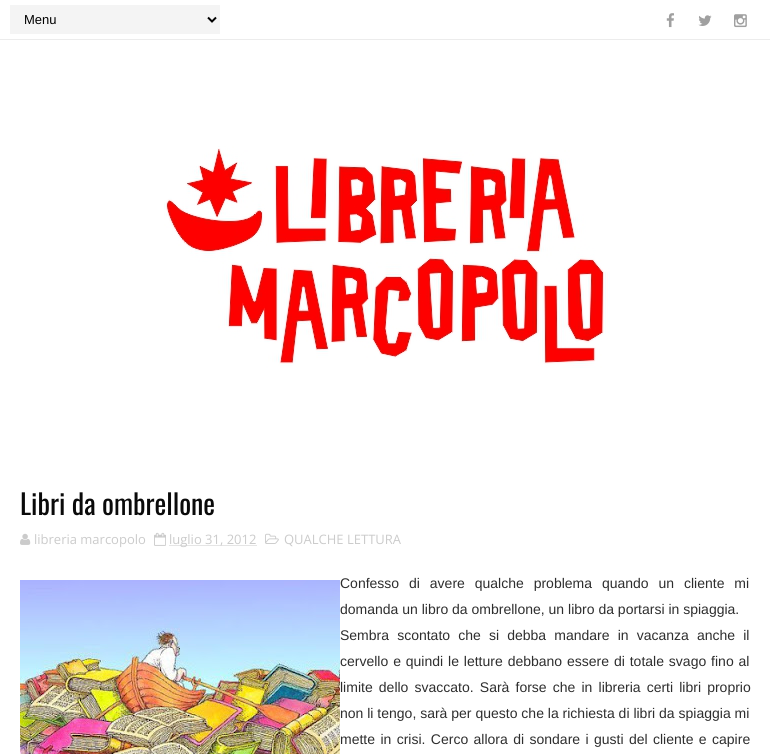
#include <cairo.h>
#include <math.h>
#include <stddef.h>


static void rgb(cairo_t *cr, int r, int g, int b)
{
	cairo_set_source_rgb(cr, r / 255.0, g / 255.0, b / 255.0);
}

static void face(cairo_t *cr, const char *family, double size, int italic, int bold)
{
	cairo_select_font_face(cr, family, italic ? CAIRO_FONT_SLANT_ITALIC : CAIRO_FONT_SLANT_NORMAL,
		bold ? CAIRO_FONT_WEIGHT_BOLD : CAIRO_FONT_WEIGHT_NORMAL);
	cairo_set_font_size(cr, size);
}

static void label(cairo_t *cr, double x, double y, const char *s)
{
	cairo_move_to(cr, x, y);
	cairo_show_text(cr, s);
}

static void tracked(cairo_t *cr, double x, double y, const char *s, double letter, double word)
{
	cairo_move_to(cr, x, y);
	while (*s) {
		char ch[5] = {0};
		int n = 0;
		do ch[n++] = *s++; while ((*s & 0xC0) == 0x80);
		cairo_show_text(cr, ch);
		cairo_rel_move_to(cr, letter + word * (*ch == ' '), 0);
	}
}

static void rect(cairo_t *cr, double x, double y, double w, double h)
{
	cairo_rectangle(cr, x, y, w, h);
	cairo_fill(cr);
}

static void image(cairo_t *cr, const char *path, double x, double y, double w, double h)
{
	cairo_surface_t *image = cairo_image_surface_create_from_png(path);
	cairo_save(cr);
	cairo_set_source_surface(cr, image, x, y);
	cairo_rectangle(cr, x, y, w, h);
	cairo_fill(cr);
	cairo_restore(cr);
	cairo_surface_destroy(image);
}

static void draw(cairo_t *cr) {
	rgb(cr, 255, 255, 255);
	cairo_paint(cr);
	rgb(cr, 236, 236, 236);
	rect(cr, 0, 39, 770, 1);
	rgb(cr, 244, 244, 244);
	rect(cr, 10, 5, 210, 29);
	cairo_new_path(cr);
	cairo_move_to(cr, 208, 17.5);
	cairo_line_to(cr, 212, 21.5);
	cairo_line_to(cr, 216, 17.5);
	rgb(cr, 0, 0, 0);
	cairo_stroke(cr);
	face(cr, "Liberation Sans", 13, 0, 0);
	label(cr, 24, 24, "Menu");
	image(cr, "image0.png", 666, 13, 8, 15);
	image(cr, "image1.png", 698, 15, 14, 11);
	image(cr, "image2.png", 734, 14, 13, 14);
	image(cr, "image3.png", 164, 146, 446, 222);
	face(cr, "Oswald", 28, 0, 0);
	rgb(cr, 10, 10, 10);
	label(cr, 20, 515, "Libri da ombrellone");
	image(cr, "image4.png", 20, 533, 11, 12);
	face(cr, "Open Sans", 13, 0, 0);
	rgb(cr, 203, 203, 203);
	label(cr, 34, 544, "libreria marcopolo");
	image(cr, "image5.png", 154, 532, 12, 14);
	cairo_new_path(cr);
	cairo_move_to(cr, 169.5, 545.5);
	cairo_line_to(cr, 256.5, 545.5);
	cairo_set_line_width(cr, 1);
	cairo_set_dash(cr, (double[]){1, 1}, 2, 0);
	cairo_stroke(cr);
	label(cr, 169, 544, "luglio 31, 2012");
	image(cr, "image6.png", 265, 533, 14, 11);
	label(cr, 284, 544, "QUALCHE LETTURA");
	image(cr, "image7.png", 20, 580, 320, 174);
	face(cr, "Liberation Sans", 14, 0, 0);
	rgb(cr, 46, 46, 46);
	tracked(cr, 340, 588, "Confesso di avere qualche problema quando un cliente mi", 0, 6);
	label(cr, 340, 614, "domanda un libro da ombrellone, un libro da portarsi in spiaggia.");
	tracked(cr, 340, 640, "Sembra scontato che si debba mandare in vacanza anche il", 0, 4.25);
	tracked(cr, 340, 666, "cervello e quindi le letture debbano essere di totale svago fino al", 0, 1);
	tracked(cr, 340, 692, "limite dello svaccato. Sarà forse che in libreria certi libri proprio", 0, 2.25);
	label(cr, 340, 718, "non li tengo, sarà per questo che la richiesta di libri da spiaggia mi");
	tracked(cr, 340, 744, "mette in crisi. Cerco allora di sondare i gusti del cliente e capire", 0, 1.5);
}

int main(void) {
	cairo_surface_t *surface = cairo_image_surface_create(CAIRO_FORMAT_RGB24, 770, 754);
	cairo_t *cr = cairo_create(surface);
	cairo_font_options_t *options = cairo_font_options_create();
	cairo_font_options_set_hint_metrics(options, CAIRO_HINT_METRICS_OFF);
	cairo_font_options_set_hint_style(options, CAIRO_HINT_STYLE_NONE);
	cairo_set_font_options(cr, options);
	cairo_set_miter_limit(cr, 4);
	draw(cr);
	cairo_surface_write_to_png(surface, "render.png");
	cairo_font_options_destroy(options);
	cairo_destroy(cr);
	cairo_surface_destroy(surface);
	return 0;
}
